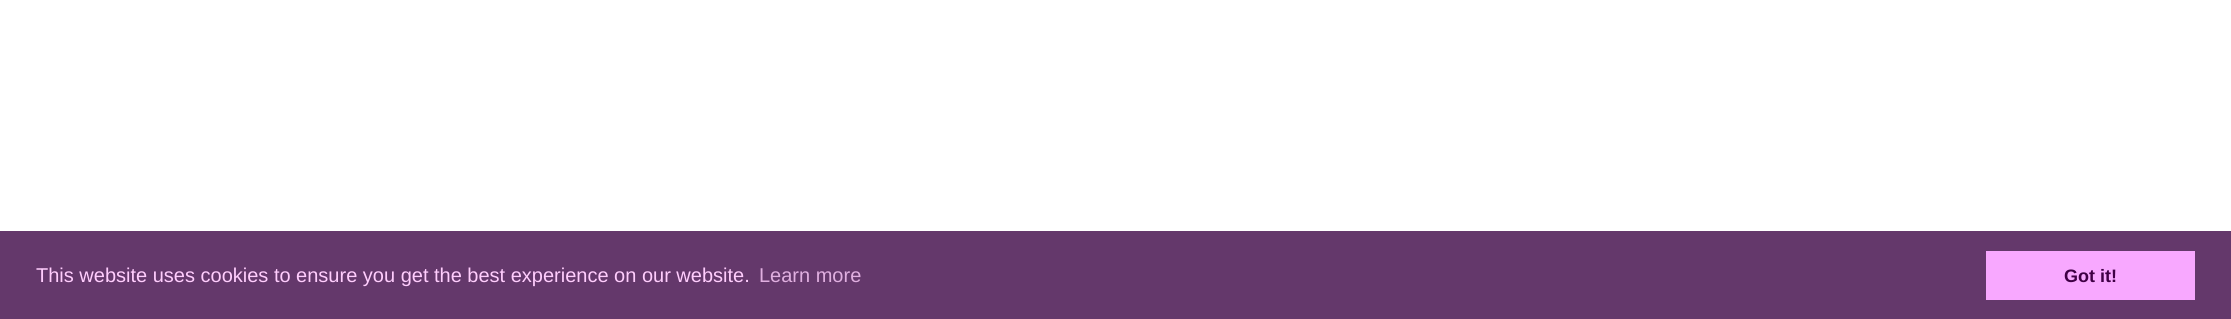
#include <cairo.h>
#include <math.h>
#include <stddef.h>


static void rgb(cairo_t *cr, int r, int g, int b)
{
	cairo_set_source_rgb(cr, r / 255.0, g / 255.0, b / 255.0);
}

static void face(cairo_t *cr, const char *family, double size, int italic, int bold)
{
	cairo_select_font_face(cr, family, italic ? CAIRO_FONT_SLANT_ITALIC : CAIRO_FONT_SLANT_NORMAL,
		bold ? CAIRO_FONT_WEIGHT_BOLD : CAIRO_FONT_WEIGHT_NORMAL);
	cairo_set_font_size(cr, size);
}

static void label(cairo_t *cr, double x, double y, const char *s)
{
	cairo_move_to(cr, x, y);
	cairo_show_text(cr, s);
}

static void rect(cairo_t *cr, double x, double y, double w, double h)
{
	cairo_rectangle(cr, x, y, w, h);
	cairo_fill(cr);
}

static void draw(cairo_t *cr) {
	rgb(cr, 255, 255, 255);
	cairo_paint(cr);
	rgb(cr, 100, 56, 107);
	rect(cr, 0, 231, 2231, 88);
	face(cr, "Liberation Sans", 20, 0, 0);
	rgb(cr, 255, 205, 253);
	label(cr, 36, 282, "This website uses cookies to ensure you get the best experience on our website.");
	rgb(cr, 224, 175, 224);
	label(cr, 759, 282, "Learn more");
	rgb(cr, 248, 168, 255);
	rect(cr, 1986, 251, 209, 49);
	face(cr, "Liberation Sans", 18, 0, 1);
	rgb(cr, 63, 0, 69);
	label(cr, 2064, 282, "Got it!");
}

int main(void) {
	cairo_surface_t *surface = cairo_image_surface_create(CAIRO_FORMAT_RGB24, 2231, 319);
	cairo_t *cr = cairo_create(surface);
	cairo_font_options_t *options = cairo_font_options_create();
	cairo_font_options_set_hint_metrics(options, CAIRO_HINT_METRICS_OFF);
	cairo_font_options_set_hint_style(options, CAIRO_HINT_STYLE_NONE);
	cairo_set_font_options(cr, options);
	cairo_set_miter_limit(cr, 4);
	draw(cr);
	cairo_surface_write_to_png(surface, "render.png");
	cairo_font_options_destroy(options);
	cairo_destroy(cr);
	cairo_surface_destroy(surface);
	return 0;
}
